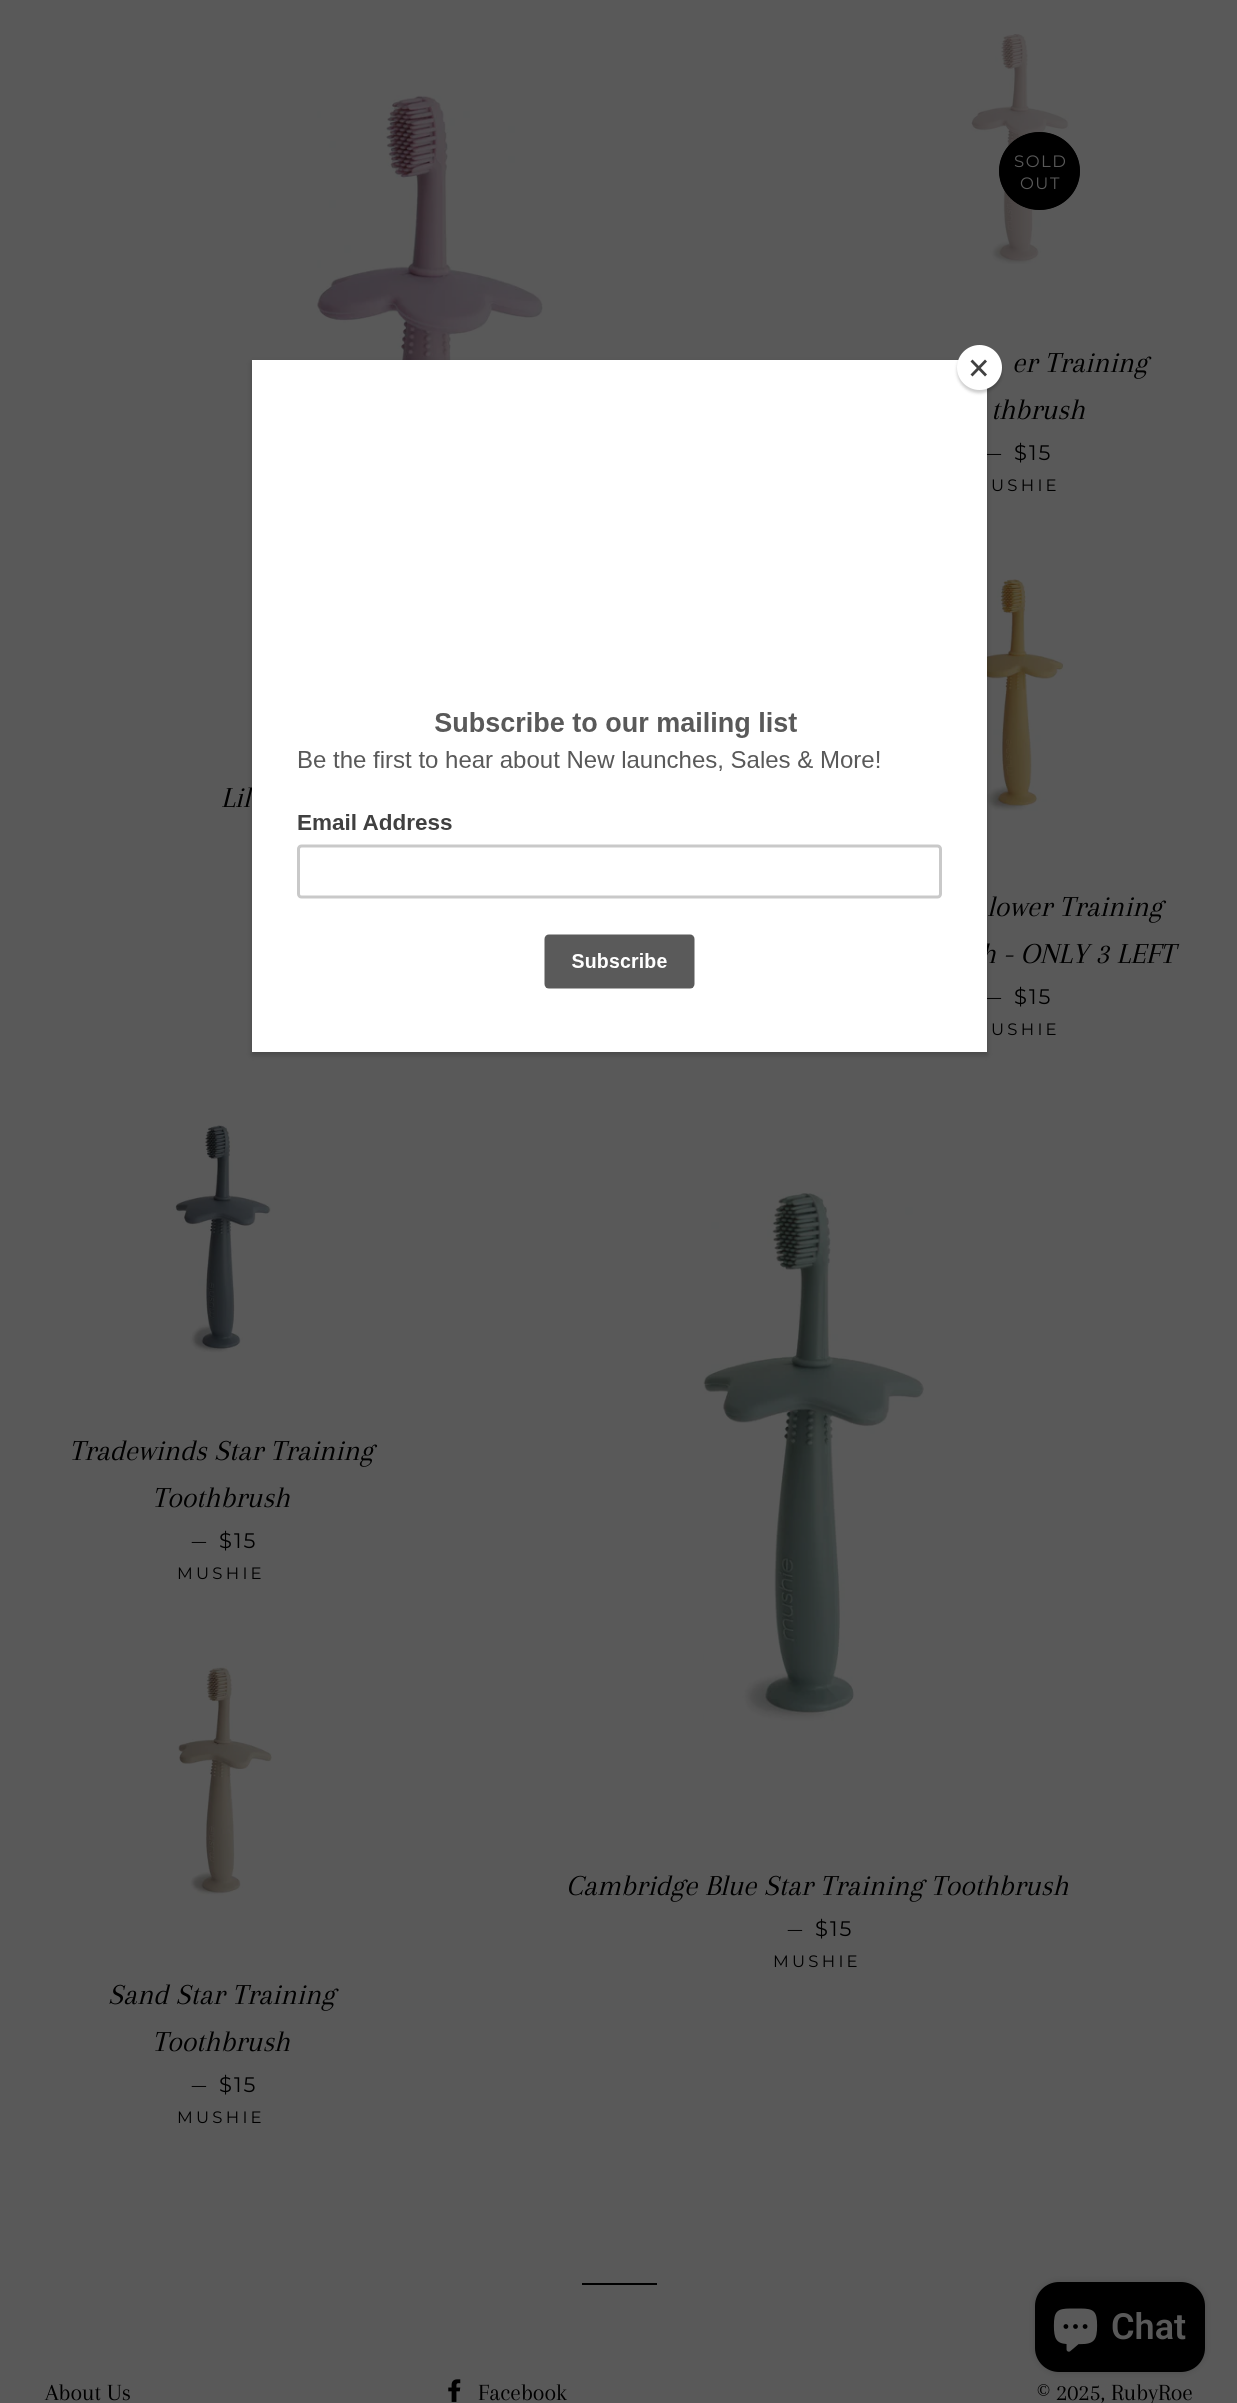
#include <cairo.h>
#include <math.h>
#include <stddef.h>


static void rgb(cairo_t *cr, int r, int g, int b)
{
	cairo_set_source_rgb(cr, r / 255.0, g / 255.0, b / 255.0);
}

static void face(cairo_t *cr, const char *family, double size, int italic, int bold)
{
	cairo_select_font_face(cr, family, italic ? CAIRO_FONT_SLANT_ITALIC : CAIRO_FONT_SLANT_NORMAL,
		bold ? CAIRO_FONT_WEIGHT_BOLD : CAIRO_FONT_WEIGHT_NORMAL);
	cairo_set_font_size(cr, size);
}

static void label(cairo_t *cr, double x, double y, const char *s)
{
	cairo_move_to(cr, x, y);
	cairo_show_text(cr, s);
}

static void tracked(cairo_t *cr, double x, double y, const char *s, double letter, double word)
{
	cairo_move_to(cr, x, y);
	while (*s) {
		char ch[5] = {0};
		int n = 0;
		do ch[n++] = *s++; while ((*s & 0xC0) == 0x80);
		cairo_show_text(cr, ch);
		cairo_rel_move_to(cr, letter + word * (*ch == ' '), 0);
	}
}

static void rect(cairo_t *cr, double x, double y, double w, double h)
{
	cairo_rectangle(cr, x, y, w, h);
	cairo_fill(cr);
}

static void rrect(cairo_t *cr, double x, double y, double w, double h, double r)
{
	cairo_new_sub_path(cr);
	cairo_arc(cr, x + w - r, y + h - r, r, 0, M_PI / 2);
	cairo_arc(cr, x + r, y + h - r, r, M_PI / 2, M_PI);
	cairo_arc(cr, x + r, y + r, r, M_PI, 1.5 * M_PI);
	cairo_arc(cr, x + w - r, y + r, r, 1.5 * M_PI, 2 * M_PI);
	cairo_close_path(cr);
}

static void soft_shadow(cairo_t *cr, double x, double y, double w, double h, double r, double blur, double alpha)
{
	cairo_push_group_with_content(cr, CAIRO_CONTENT_ALPHA);
	cairo_set_operator(cr, CAIRO_OPERATOR_SOURCE);
	for (int i = 15; i >= -15 && fmin(w, h) + blur * i / 3 > 0; i -= 2) {
		double e = blur * i / 6;
		cairo_set_source_rgba(cr, 0, 0, 0, alpha * erfc((i - 1) / 8.5) / 2);
		rrect(cr, x - e, y - e, w + 2 * e, h + 2 * e, fmax(0, fmin(r + e + blur * .6, fmin(w, h) / 2 + e)));
		cairo_fill(cr);
	}
	cairo_pattern_t *soft = cairo_pop_group(cr);
	cairo_mask(cr, soft);
	cairo_pattern_destroy(soft);
}

static void image(cairo_t *cr, const char *path, double x, double y, double w, double h)
{
	cairo_surface_t *image = cairo_image_surface_create_from_png(path);
	cairo_save(cr);
	cairo_set_source_surface(cr, image, x, y);
	cairo_rectangle(cr, x, y, w, h);
	cairo_fill(cr);
	cairo_restore(cr);
	cairo_surface_destroy(image);
}

static void draw(cairo_t *cr) {
	rgb(cr, 89, 89, 89);
	cairo_paint(cr);
	image(cr, "image0.png", 971, 34, 98, 230);
	rgb(cr, 0, 0, 0);
	cairo_new_path(cr);
	cairo_move_to(cr, 1039.5, 132);
	cairo_curve_to(cr, 1062, 132, 1080, 149.5, 1080, 171);
	cairo_curve_to(cr, 1080, 192.5, 1062, 210, 1039.5, 210);
	cairo_curve_to(cr, 1017, 210, 999, 192.5, 999, 171);
	cairo_curve_to(cr, 999, 149.5, 1017, 132, 1039.5, 132);
	cairo_close_path(cr);
	cairo_fill(cr);
	cairo_new_path(cr);
	cairo_move_to(cr, 1039.5, 133);
	cairo_curve_to(cr, 1061.5, 133, 1079, 150, 1079, 171);
	cairo_curve_to(cr, 1079, 192, 1061.5, 209, 1039.5, 209);
	cairo_curve_to(cr, 1017.5, 209, 1000, 192, 1000, 171);
	cairo_curve_to(cr, 1000, 150, 1017.5, 133, 1039.5, 133);
	cairo_close_path(cr);
	cairo_set_line_width(cr, 1.5);
	cairo_stroke(cr);
	face(cr, "Montserrat Thin", 16.5, 0, 0);
	rgb(cr, 89, 89, 89);
	tracked(cr, 1014, 167, "SOLD", 1.5, 0);
	tracked(cr, 1020, 189, "OUT", 1.5, 0);
	face(cr, "Arapey", 30, 1, 0);
	rgb(cr, 0, 0, 0);
	label(cr, 1012, 372, "er Training");
	label(cr, 991, 419, "thbrush");
	face(cr, "Arapey", 24, 0, 0);
	label(cr, 986, 460, "—");
	face(cr, "Montserrat Thin", 21, 0, 0);
	tracked(cr, 1014, 460, "$15", 2, 0);
	face(cr, "Montserrat Thin", 16.5, 0, 0);
	tracked(cr, 991, 491, "USHIE", 3.25, 0);
	image(cr, "image1.png", 317, 95, 226, 265);
	face(cr, "Arapey", 30, 1, 0);
	label(cr, 221, 807, "Lil");
	image(cr, "image2.png", 987, 579, 78, 232);
	label(cr, 987, 916, "lower Training");
	label(cr, 980, 963, "h - ONLY 3 LEFT");
	face(cr, "Arapey", 24, 0, 0);
	label(cr, 986, 1004, "—");
	face(cr, "Montserrat Thin", 21, 0, 0);
	tracked(cr, 1014, 1004, "$15", 2, 0);
	face(cr, "Montserrat Thin", 16.5, 0, 0);
	tracked(cr, 991, 1035, "USHIE", 3.25, 0);
	image(cr, "image3.png", 173, 1125, 98, 228);
	face(cr, "Arapey", 30, 1, 0);
	label(cr, 69, 1460, "Tradewinds Star Training");
	label(cr, 152, 1507, "Toothbrush");
	face(cr, "Arapey", 24, 0, 0);
	label(cr, 191, 1548, "—");
	face(cr, "Montserrat Thin", 21, 0, 0);
	tracked(cr, 219, 1548, "$15", 2, 0);
	face(cr, "Montserrat Thin", 16.5, 0, 0);
	tracked(cr, 177, 1579, "MUSHIE", 3.25, 0);
	image(cr, "image4.png", 177, 1666, 95, 230);
	face(cr, "Arapey", 30, 1, 0);
	label(cr, 108, 2004, "Sand Star Training");
	label(cr, 152, 2051, "Toothbrush");
	face(cr, "Arapey", 24, 0, 0);
	label(cr, 191, 2092, "—");
	face(cr, "Montserrat Thin", 21, 0, 0);
	tracked(cr, 219, 2092, "$15", 2, 0);
	face(cr, "Montserrat Thin", 16.5, 0, 0);
	tracked(cr, 177, 2123, "MUSHIE", 3.25, 0);
	image(cr, "image5.png", 703, 1192, 221, 529);
	face(cr, "Arapey", 30, 1, 0);
	label(cr, 566, 1895, "Cambridge Blue Star Training Toothbrush");
	face(cr, "Arapey", 24, 0, 0);
	label(cr, 787, 1936, "—");
	face(cr, "Montserrat Thin", 21, 0, 0);
	tracked(cr, 815, 1936, "$15", 2, 0);
	face(cr, "Montserrat Thin", 16.5, 0, 0);
	tracked(cr, 773, 1967, "MUSHIE", 3.25, 0);
	rect(cr, 582, 2283, 75, 2);
	face(cr, "Arapey", 24, 0, 0);
	label(cr, 45, 2400, "About Us");
	image(cr, "image6.png", 448, 2379, 13, 23);
	label(cr, 478, 2400, "Facebook");
	label(cr, 1037, 2400, "© 2025, RubyRoe");
	rgb(cr, 0, 0, 0);
	soft_shadow(cr, 252, 363, 735, 692, 0, 3, 0.2);
	image(cr, "image7.png", 252, 360, 735, 692);
	soft_shadow(cr, 957, 348, 45, 45, 22.5, 1.5, 0.2);
	rgb(cr, 255, 255, 255);
	cairo_arc(cr, 979.5, 367.5, 22.5, 0, 2 * M_PI);
	cairo_fill(cr);
	rgb(cr, 65, 65, 65);
	cairo_new_path(cr);
	cairo_move_to(cr, 985, 359.5);
	cairo_line_to(cr, 987, 361.5);
	cairo_line_to(cr, 972.5, 376.5);
	cairo_line_to(cr, 970.5, 374.5);
	cairo_close_path(cr);
	cairo_fill(cr);
	cairo_new_path(cr);
	cairo_move_to(cr, 970.5, 361.5);
	cairo_line_to(cr, 972.5, 359.5);
	cairo_line_to(cr, 987, 374.5);
	cairo_line_to(cr, 985, 376.5);
	cairo_close_path(cr);
	cairo_fill(cr);
	rgb(cr, 0, 0, 0);
	soft_shadow(cr, 1035, 2282, 170, 90, 24, 4, 0.15);
	rgb(cr, 0, 0, 0);
	rrect(cr, 1035, 2282, 170, 90, 24);
	cairo_fill(cr);
	image(cr, "image8.png", 1053, 2308, 45, 44);
	face(cr, "Roboto SemiBold", 36, 0, 0);
	rgb(cr, 89, 89, 89);
	label(cr, 1111, 2339, "Chat");
}

int main(void) {
	cairo_surface_t *surface = cairo_image_surface_create(CAIRO_FORMAT_RGB24, 1237, 2403);
	cairo_t *cr = cairo_create(surface);
	cairo_font_options_t *options = cairo_font_options_create();
	cairo_font_options_set_hint_metrics(options, CAIRO_HINT_METRICS_OFF);
	cairo_font_options_set_hint_style(options, CAIRO_HINT_STYLE_NONE);
	cairo_set_font_options(cr, options);
	cairo_set_miter_limit(cr, 4);
	draw(cr);
	cairo_surface_write_to_png(surface, "render.png");
	cairo_font_options_destroy(options);
	cairo_destroy(cr);
	cairo_surface_destroy(surface);
	return 0;
}
